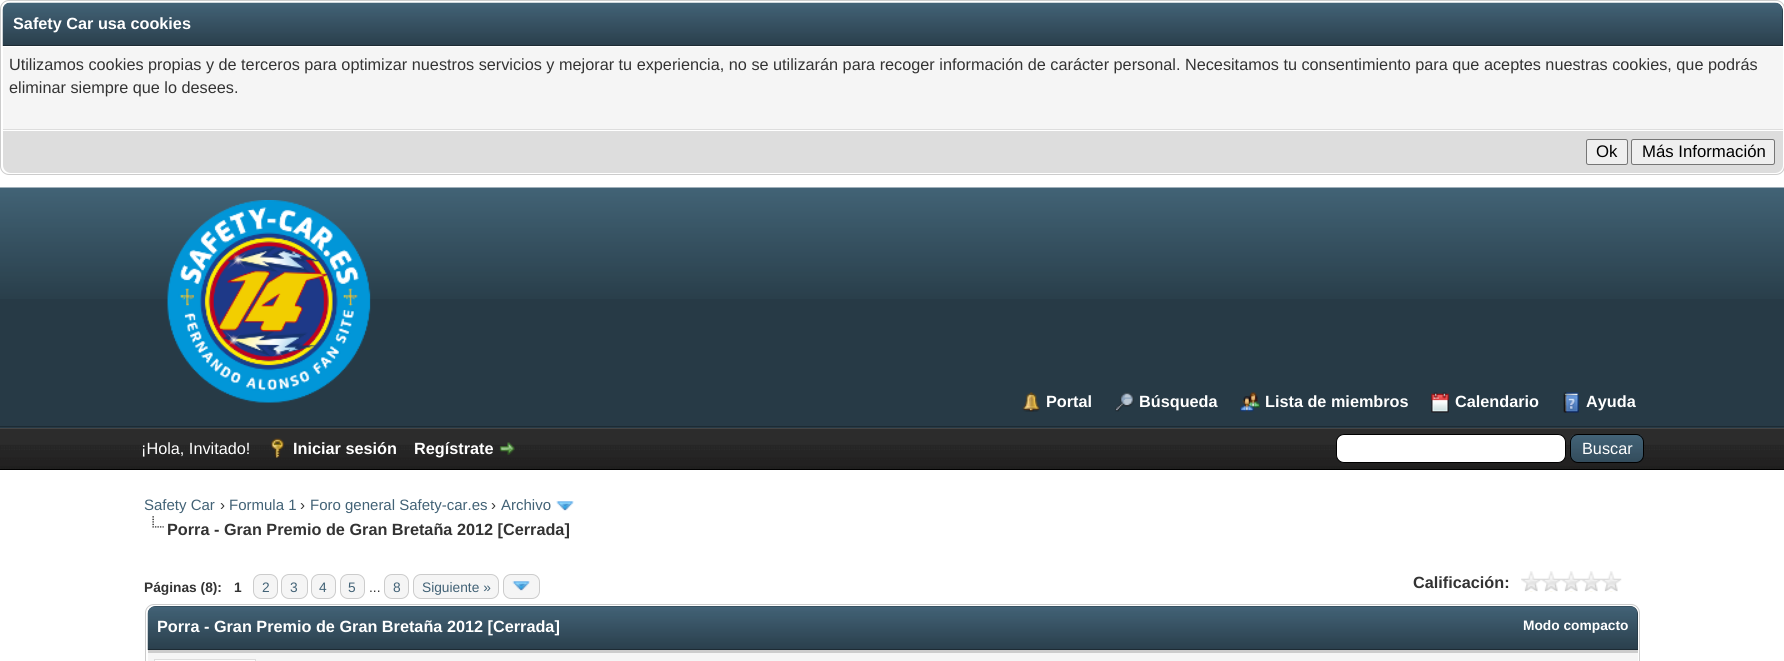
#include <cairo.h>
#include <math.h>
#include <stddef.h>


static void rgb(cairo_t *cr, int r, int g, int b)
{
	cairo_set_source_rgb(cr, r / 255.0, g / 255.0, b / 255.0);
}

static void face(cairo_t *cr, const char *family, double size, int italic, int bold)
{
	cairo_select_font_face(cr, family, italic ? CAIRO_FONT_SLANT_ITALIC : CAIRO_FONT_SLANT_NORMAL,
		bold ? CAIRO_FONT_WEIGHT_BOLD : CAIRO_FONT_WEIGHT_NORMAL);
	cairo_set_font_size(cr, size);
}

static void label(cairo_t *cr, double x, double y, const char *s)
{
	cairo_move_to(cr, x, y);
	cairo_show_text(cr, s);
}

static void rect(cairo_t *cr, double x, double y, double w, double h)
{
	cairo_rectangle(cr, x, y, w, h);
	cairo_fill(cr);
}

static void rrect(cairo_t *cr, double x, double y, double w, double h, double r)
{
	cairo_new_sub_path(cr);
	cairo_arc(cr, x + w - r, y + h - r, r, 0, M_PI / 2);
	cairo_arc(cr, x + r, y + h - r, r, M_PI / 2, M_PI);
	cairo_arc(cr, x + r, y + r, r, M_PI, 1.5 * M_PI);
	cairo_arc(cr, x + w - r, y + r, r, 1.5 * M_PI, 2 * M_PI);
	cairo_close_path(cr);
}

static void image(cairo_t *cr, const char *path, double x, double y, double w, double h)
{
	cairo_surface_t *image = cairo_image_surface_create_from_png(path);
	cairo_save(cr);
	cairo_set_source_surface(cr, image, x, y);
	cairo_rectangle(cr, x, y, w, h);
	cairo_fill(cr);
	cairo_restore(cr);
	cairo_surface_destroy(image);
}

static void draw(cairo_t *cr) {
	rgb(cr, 255, 255, 255);
	cairo_paint(cr);
	rrect(cr, 0.5, 0.5, 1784, 174, 8.5);
	rgb(cr, 204, 204, 204);
	cairo_set_line_width(cr, 1);
	cairo_stroke(cr);
	rgb(cr, 39, 58, 70);
	cairo_new_path(cr);
	cairo_move_to(cr, 11, 3);
	cairo_line_to(cr, 1775, 3);
	cairo_curve_to(cr, 1779.5, 3, 1783, 6.5, 1783, 11);
	cairo_line_to(cr, 1783, 46);
	cairo_line_to(cr, 3, 46);
	cairo_line_to(cr, 3, 11);
	cairo_curve_to(cr, 3, 6.5, 6.5, 3, 11, 3);
	cairo_close_path(cr);
	cairo_fill(cr);
	image(cr, "image0.png", 2, 2, 1781, 44);
	rgb(cr, 29, 43, 52);
	rect(cr, 3, 45, 1780, 1);
	face(cr, "Liberation Sans", 16.25, 0, 1);
	rgb(cr, 255, 255, 255);
	label(cr, 13, 29, "Safety Car usa cookies");
	rgb(cr, 245, 245, 245);
	rect(cr, 3, 47, 1780, 82);
	rgb(cr, 221, 221, 221);
	rect(cr, 3, 129, 1780, 1);
	face(cr, "Liberation Sans", 16.25, 0, 0);
	rgb(cr, 51, 51, 51);
	label(cr, 9, 70, "Utilizamos cookies propias y de terceros para optimizar nuestros servicios y mejorar tu experiencia, no se utilizarán para recoger información de carácter personal. Necesitamos tu consentimiento para que aceptes nuestras cookies, que podrás");
	label(cr, 9, 93, "eliminar siempre que lo desees.");
	rgb(cr, 221, 221, 221);
	cairo_new_path(cr);
	cairo_move_to(cr, 3, 130);
	cairo_line_to(cr, 1783, 130);
	cairo_line_to(cr, 1783, 165);
	cairo_curve_to(cr, 1783, 169.5, 1779.5, 173, 1775, 173);
	cairo_line_to(cr, 11, 173);
	cairo_curve_to(cr, 6.5, 173, 3, 169.5, 3, 165);
	cairo_close_path(cr);
	cairo_fill(cr);
	rgb(cr, 255, 255, 255);
	rect(cr, 3, 130, 1780, 1);
	rgb(cr, 239, 239, 239);
	rrect(cr, 1586.5, 139.5, 41, 25, 2);
	cairo_fill_preserve(cr);
	rgb(cr, 118, 118, 118);
	cairo_stroke(cr);
	face(cr, "Liberation Sans", 16.75, 0, 0);
	rgb(cr, 0, 0, 0);
	label(cr, 1596, 157, "Ok");
	rgb(cr, 239, 239, 239);
	rrect(cr, 1631.5, 139.5, 143, 25, 2);
	cairo_fill_preserve(cr);
	rgb(cr, 118, 118, 118);
	cairo_stroke(cr);
	rgb(cr, 0, 0, 0);
	label(cr, 1642, 157, "Más Información");
	rgb(cr, 39, 58, 70);
	rect(cr, 0, 299, 1784, 129);
	image(cr, "image1.png", 0, 187, 1784, 112);
	rgb(cr, 29, 43, 52);
	rect(cr, 0, 426, 1784, 1);
	image(cr, "image2.png", 167, 200, 204, 203);
	image(cr, "image3.png", 1022, 392, 18, 20);
	face(cr, "Liberation Sans", 16.25, 0, 1);
	rgb(cr, 255, 255, 255);
	label(cr, 1046, 407, "Portal");
	image(cr, "image4.png", 1115, 392, 19, 20);
	label(cr, 1139, 407, "Búsqueda");
	image(cr, "image5.png", 1240, 392, 20, 20);
	label(cr, 1265, 407, "Lista de miembros");
	image(cr, "image6.png", 1431, 392, 18, 21);
	label(cr, 1455, 407, "Calendario");
	image(cr, "image7.png", 1563, 392, 16, 21);
	label(cr, 1586, 407, "Ayuda");
	image(cr, "image8.png", 0, 429, 1784, 40);
	rgb(cr, 68, 68, 68);
	rect(cr, 0, 428, 1784, 1);
	rgb(cr, 0, 0, 0);
	rect(cr, 0, 469, 1784, 1);
	face(cr, "Liberation Sans", 16.25, 0, 0);
	rgb(cr, 255, 255, 255);
	label(cr, 141, 454, "¡Hola, Invitado!");
	image(cr, "image9.png", 271, 438, 13, 20);
	face(cr, "Liberation Sans", 16.25, 0, 1);
	label(cr, 293, 454, "Iniciar sesión");
	label(cr, 414, 454, "Regístrate");
	image(cr, "image10.png", 499, 442, 16, 13);
	rrect(cr, 1336.5, 434.5, 229, 28, 7.5);
	cairo_fill_preserve(cr);
	rgb(cr, 0, 0, 0);
	cairo_stroke(cr);
	image(cr, "image11.png", 1570, 435, 74, 28);
	rrect(cr, 1570.5, 434.5, 73, 28, 7.5);
	cairo_stroke(cr);
	face(cr, "Liberation Sans", 16.25, 0, 0);
	rgb(cr, 255, 255, 255);
	label(cr, 1582, 454, "Buscar");
	face(cr, "Liberation Sans", 15, 0, 0);
	rgb(cr, 66, 98, 118);
	label(cr, 144, 510, "Safety Car");
	rgb(cr, 51, 51, 51);
	label(cr, 220, 510, "›");
	rgb(cr, 66, 98, 118);
	label(cr, 229, 510, "Formula 1");
	rgb(cr, 51, 51, 51);
	label(cr, 300, 510, "›");
	rgb(cr, 66, 98, 118);
	label(cr, 310, 510, "Foro general Safety-car.es");
	rgb(cr, 51, 51, 51);
	label(cr, 491, 510, "›");
	rgb(cr, 66, 98, 118);
	label(cr, 501, 510, "Archivo");
	image(cr, "image12.png", 556, 501, 18, 10);
	image(cr, "image13.png", 152, 516, 12, 12);
	face(cr, "Liberation Sans", 16.25, 0, 1);
	rgb(cr, 51, 51, 51);
	label(cr, 167, 535, "Porra - Gran Premio de Gran Bretaña 2012 [Cerrada]");
	face(cr, "Liberation Sans", 13.75, 0, 1);
	label(cr, 144, 592, "Páginas (8):");
	rgb(cr, 245, 245, 245);
	rrect(cr, 503.5, 574.5, 36, 24, 7.5);
	cairo_fill_preserve(cr);
	rgb(cr, 204, 204, 204);
	cairo_stroke(cr);
	rgb(cr, 51, 51, 51);
	label(cr, 234, 592, "1");
	rgb(cr, 245, 245, 245);
	rrect(cr, 253.5, 574.5, 24, 24, 7.5);
	cairo_fill_preserve(cr);
	rgb(cr, 204, 204, 204);
	cairo_stroke(cr);
	face(cr, "Liberation Sans", 13.75, 0, 0);
	rgb(cr, 66, 98, 118);
	label(cr, 262, 592, "2");
	rgb(cr, 245, 245, 245);
	rrect(cr, 281.5, 574.5, 26, 24, 7.5);
	cairo_fill_preserve(cr);
	rgb(cr, 204, 204, 204);
	cairo_stroke(cr);
	rgb(cr, 66, 98, 118);
	label(cr, 290, 592, "3");
	rgb(cr, 245, 245, 245);
	rrect(cr, 311.5, 574.5, 24, 24, 7.5);
	cairo_fill_preserve(cr);
	rgb(cr, 204, 204, 204);
	cairo_stroke(cr);
	rgb(cr, 66, 98, 118);
	label(cr, 319, 592, "4");
	rgb(cr, 245, 245, 245);
	rrect(cr, 340.5, 574.5, 24, 24, 7.5);
	cairo_fill_preserve(cr);
	rgb(cr, 204, 204, 204);
	cairo_stroke(cr);
	rgb(cr, 66, 98, 118);
	label(cr, 348, 592, "5");
	rgb(cr, 51, 51, 51);
	label(cr, 369, 592, "...");
	rgb(cr, 245, 245, 245);
	rrect(cr, 384.5, 574.5, 24, 24, 7.5);
	cairo_fill_preserve(cr);
	rgb(cr, 204, 204, 204);
	cairo_stroke(cr);
	rgb(cr, 66, 98, 118);
	label(cr, 393, 592, "8");
	rgb(cr, 245, 245, 245);
	rrect(cr, 413.5, 574.5, 85, 24, 7.5);
	cairo_fill_preserve(cr);
	rgb(cr, 204, 204, 204);
	cairo_stroke(cr);
	rgb(cr, 66, 98, 118);
	label(cr, 422, 592, "Siguiente »");
	image(cr, "image14.png", 512, 581, 18, 10);
	face(cr, "Liberation Sans", 16.25, 0, 1);
	rgb(cr, 51, 51, 51);
	label(cr, 1413, 588, "Calificación:");
	image(cr, "image15.png", 1521, 571, 101, 21);
	rrect(cr, 145.5, 604.5, 1494, 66, 8.5);
	rgb(cr, 204, 204, 204);
	cairo_stroke(cr);
	rgb(cr, 39, 58, 70);
	cairo_new_path(cr);
	cairo_move_to(cr, 156, 606);
	cairo_line_to(cr, 1630, 606);
	cairo_curve_to(cr, 1634.5, 606, 1638, 609.5, 1638, 614);
	cairo_line_to(cr, 1638, 650);
	cairo_line_to(cr, 148, 650);
	cairo_line_to(cr, 148, 614);
	cairo_curve_to(cr, 148, 609.5, 151.5, 606, 156, 606);
	cairo_close_path(cr);
	cairo_fill(cr);
	image(cr, "image16.png", 147, 606, 1491, 44);
	rgb(cr, 29, 43, 52);
	rect(cr, 148, 649, 1490, 1);
	rgb(cr, 255, 255, 255);
	label(cr, 157, 632, "Porra - Gran Premio de Gran Bretaña 2012 [Cerrada]");
	face(cr, "Liberation Sans", 13.75, 0, 1);
	label(cr, 1523, 630, "Modo compacto");
	rgb(cr, 245, 245, 245);
	rect(cr, 148, 653, 1490, 8);
	rgb(cr, 204, 204, 204);
	rect(cr, 148, 650, 1490, 3);
	rgb(cr, 255, 255, 255);
	cairo_rectangle(cr, 154.5, 659.5, 101, 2);
	cairo_fill_preserve(cr);
	rgb(cr, 221, 221, 221);
	cairo_stroke(cr);
}

int main(void) {
	cairo_surface_t *surface = cairo_image_surface_create(CAIRO_FORMAT_RGB24, 1784, 661);
	cairo_t *cr = cairo_create(surface);
	cairo_font_options_t *options = cairo_font_options_create();
	cairo_font_options_set_hint_metrics(options, CAIRO_HINT_METRICS_OFF);
	cairo_font_options_set_hint_style(options, CAIRO_HINT_STYLE_NONE);
	cairo_set_font_options(cr, options);
	cairo_set_miter_limit(cr, 4);
	draw(cr);
	cairo_surface_write_to_png(surface, "render.png");
	cairo_font_options_destroy(options);
	cairo_destroy(cr);
	cairo_surface_destroy(surface);
	return 0;
}
